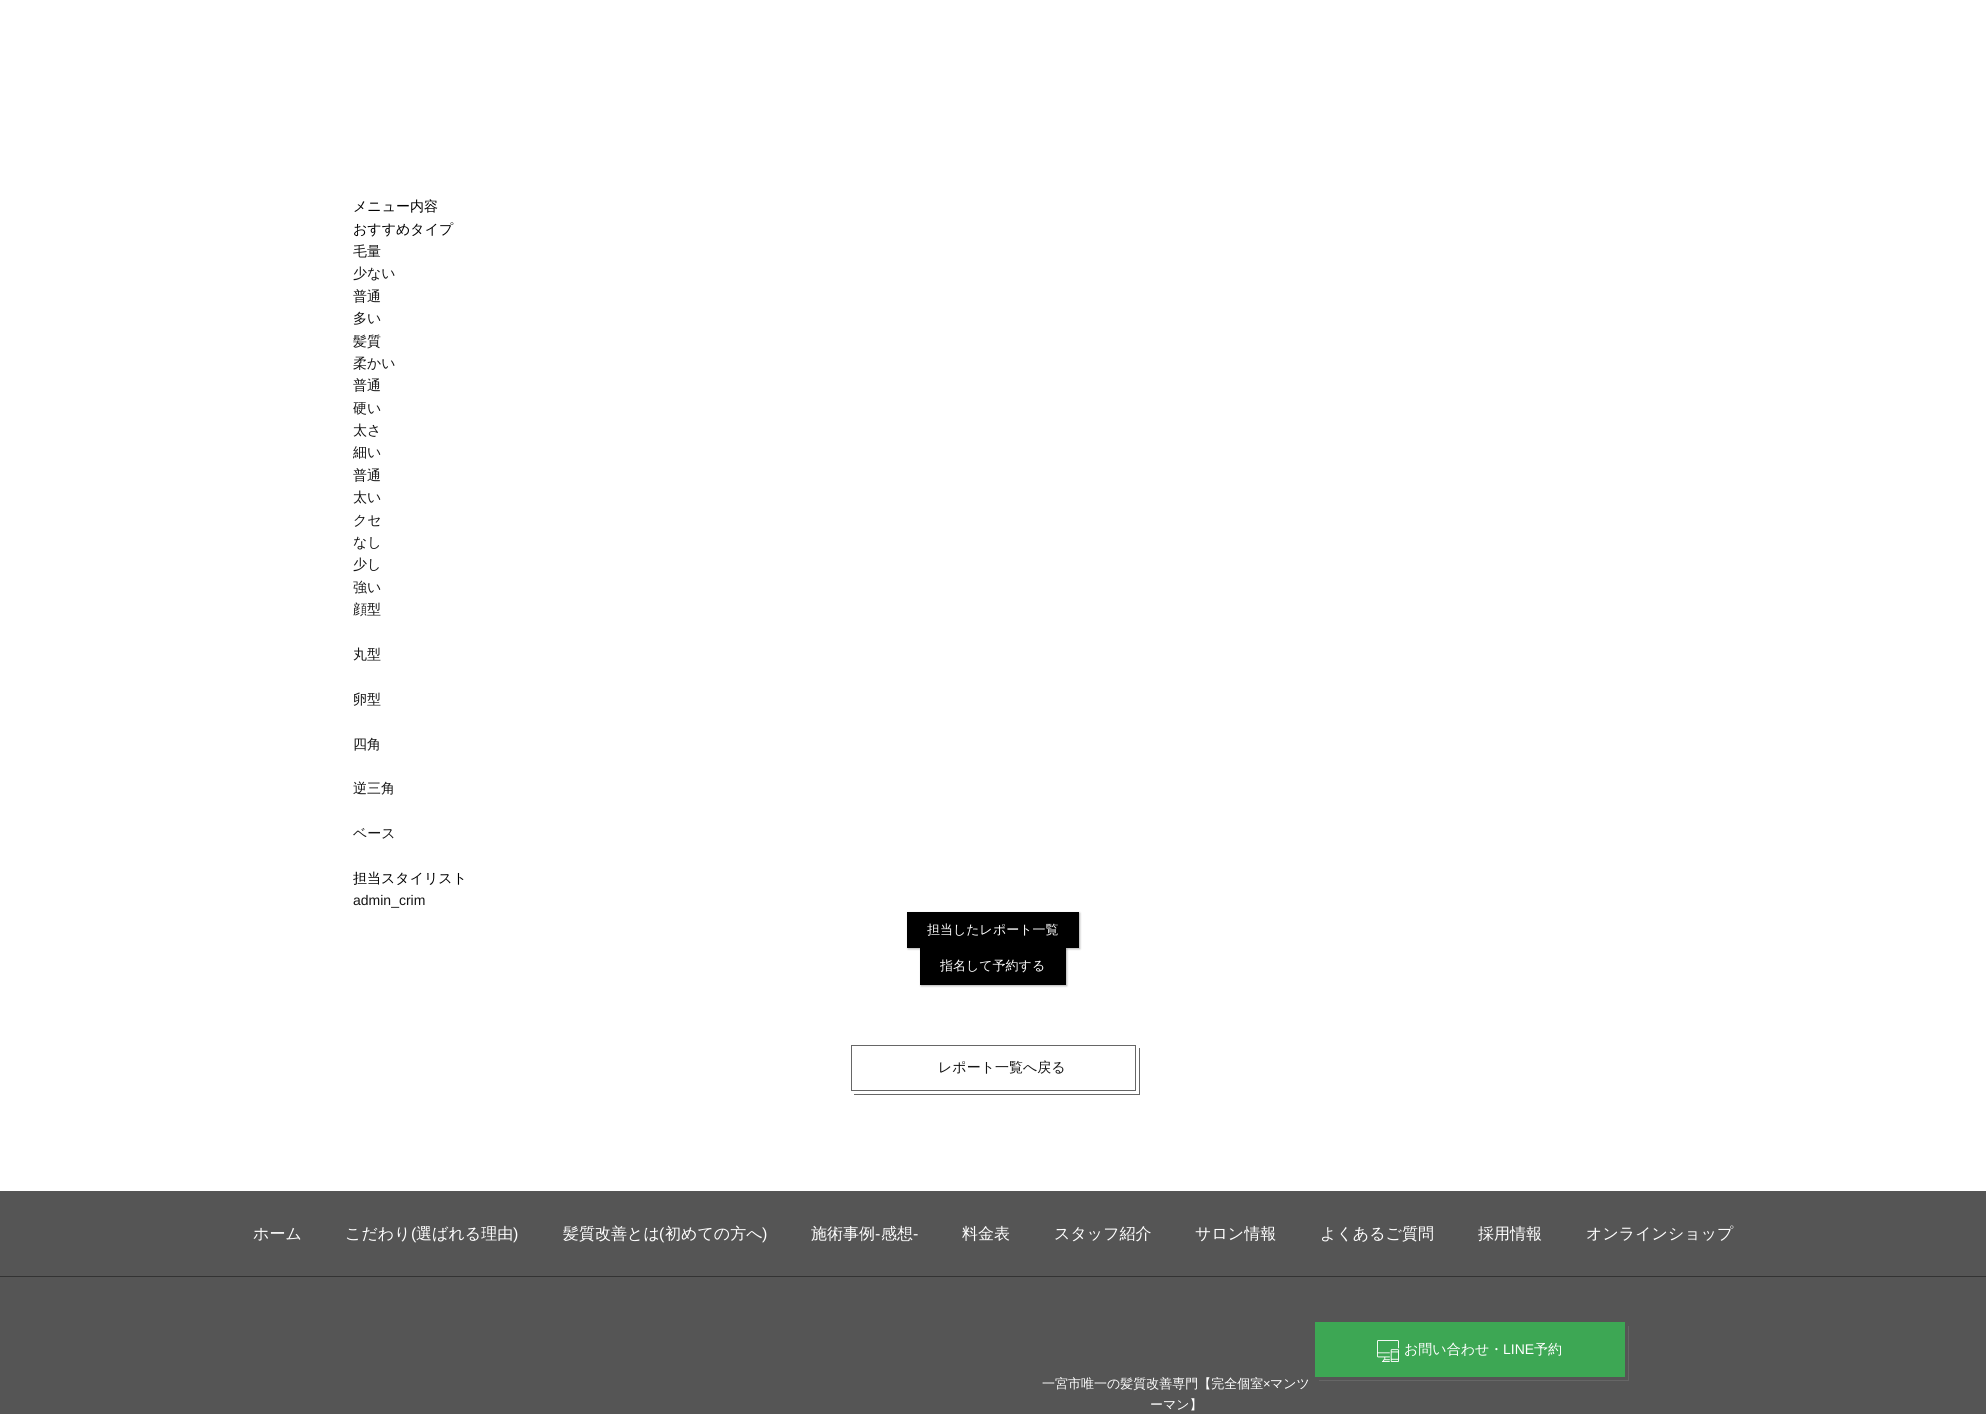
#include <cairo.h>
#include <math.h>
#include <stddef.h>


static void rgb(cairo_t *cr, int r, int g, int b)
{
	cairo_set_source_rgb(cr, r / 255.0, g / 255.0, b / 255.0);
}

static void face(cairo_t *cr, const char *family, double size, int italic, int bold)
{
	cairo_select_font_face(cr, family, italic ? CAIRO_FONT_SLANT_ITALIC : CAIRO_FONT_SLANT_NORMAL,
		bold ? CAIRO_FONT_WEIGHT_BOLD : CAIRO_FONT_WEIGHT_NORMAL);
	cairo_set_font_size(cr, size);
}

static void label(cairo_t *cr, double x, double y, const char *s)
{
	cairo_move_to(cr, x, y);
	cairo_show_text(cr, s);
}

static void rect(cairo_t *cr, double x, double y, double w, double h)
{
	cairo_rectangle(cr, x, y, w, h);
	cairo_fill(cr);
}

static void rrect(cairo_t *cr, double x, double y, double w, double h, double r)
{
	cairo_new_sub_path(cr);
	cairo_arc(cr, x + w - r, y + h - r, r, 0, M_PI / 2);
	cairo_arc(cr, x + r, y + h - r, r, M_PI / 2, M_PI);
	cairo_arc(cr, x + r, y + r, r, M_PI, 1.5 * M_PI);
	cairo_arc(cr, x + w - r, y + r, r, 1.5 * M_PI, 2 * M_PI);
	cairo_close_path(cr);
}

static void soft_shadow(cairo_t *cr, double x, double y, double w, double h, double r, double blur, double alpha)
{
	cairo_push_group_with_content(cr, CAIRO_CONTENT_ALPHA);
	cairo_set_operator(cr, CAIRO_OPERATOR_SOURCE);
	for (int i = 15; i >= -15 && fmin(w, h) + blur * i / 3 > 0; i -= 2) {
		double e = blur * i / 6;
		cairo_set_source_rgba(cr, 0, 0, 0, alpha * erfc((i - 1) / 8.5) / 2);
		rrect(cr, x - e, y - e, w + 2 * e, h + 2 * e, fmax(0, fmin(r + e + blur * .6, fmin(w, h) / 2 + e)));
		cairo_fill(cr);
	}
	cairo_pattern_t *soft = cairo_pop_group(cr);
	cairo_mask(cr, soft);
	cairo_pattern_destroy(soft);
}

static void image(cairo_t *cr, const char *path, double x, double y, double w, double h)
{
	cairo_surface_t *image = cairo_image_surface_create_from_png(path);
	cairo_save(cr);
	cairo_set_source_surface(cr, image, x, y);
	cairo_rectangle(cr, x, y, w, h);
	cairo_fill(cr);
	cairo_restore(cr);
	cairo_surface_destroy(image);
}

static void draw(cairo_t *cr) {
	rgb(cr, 255, 255, 255);
	cairo_paint(cr);
	face(cr, "WenQuanYi Zen Hei Medium", 14, 0, 0);
	rgb(cr, 0, 0, 0);
	label(cr, 353, 211, "メニュー内容");
	label(cr, 353, 234, "おすすめタイプ");
	rgb(cr, 21, 21, 21);
	label(cr, 353, 256, "毛量");
	label(cr, 353, 278, "少ない");
	label(cr, 353, 301, "普通");
	label(cr, 353, 323, "多い");
	label(cr, 353, 346, "髪質");
	label(cr, 353, 368, "柔かい");
	label(cr, 353, 390, "普通");
	label(cr, 353, 413, "硬い");
	label(cr, 353, 435, "太さ");
	label(cr, 353, 457, "細い");
	label(cr, 353, 480, "普通");
	label(cr, 353, 502, "太い");
	label(cr, 353, 525, "クセ");
	label(cr, 353, 547, "なし");
	label(cr, 353, 569, "少し");
	label(cr, 353, 592, "強い");
	label(cr, 353, 614, "顔型");
	label(cr, 353, 659, "丸型");
	label(cr, 353, 704, "卵型");
	label(cr, 353, 749, "四角");
	label(cr, 353, 793, "逆三角");
	label(cr, 353, 838, "ベース");
	rgb(cr, 0, 0, 0);
	label(cr, 353, 883, "担当スタイリスト");
	face(cr, "Liberation Sans", 14, 0, 0);
	rgb(cr, 21, 21, 21);
	label(cr, 353, 905, "admin_crim");
	rgb(cr, 0, 0, 0);
	soft_shadow(cr, 908, 913, 172, 36, 0, 1, 0.3);
	rgb(cr, 0, 0, 0);
	rect(cr, 907, 912, 172, 36);
	face(cr, "WenQuanYi Zen Hei Medium", 13, 0, 0);
	rgb(cr, 255, 255, 255);
	label(cr, 927, 934, "担当したレポート一覧");
	rgb(cr, 0, 0, 0);
	soft_shadow(cr, 921, 949, 146, 37, 0, 1, 0.3);
	rgb(cr, 0, 0, 0);
	rect(cr, 920, 948, 146, 37);
	rgb(cr, 255, 255, 255);
	label(cr, 940, 970, "指名して予約する");
	cairo_rectangle(cr, 851.5, 1045.5, 284, 45);
	rgb(cr, 102, 102, 102);
	cairo_set_line_width(cr, 1);
	cairo_stroke(cr);
	rect(cr, 1139, 1048, 1, 47);
	rect(cr, 854, 1094, 286, 1);
	face(cr, "WenQuanYi Zen Hei Medium", 14, 0, 0);
	rgb(cr, 21, 21, 21);
	label(cr, 938, 1072, "レポート一覧へ戻る");
	rgb(cr, 85, 85, 85);
	rect(cr, 0, 1191, 1986, 223);
	rgb(cr, 51, 51, 51);
	rect(cr, 0, 1276, 1986, 1);
	face(cr, "WenQuanYi Zen Hei Medium", 16, 0, 0);
	rgb(cr, 255, 255, 255);
	label(cr, 253, 1239, "ホーム");
	label(cr, 345, 1239, "こだわり");
	face(cr, "Liberation Sans", 16, 0, 0);
	label(cr, 411, 1239, "(");
	face(cr, "WenQuanYi Zen Hei Medium", 16, 0, 0);
	label(cr, 416, 1239, "選ばれる理由");
	face(cr, "Liberation Sans", 16, 0, 0);
	label(cr, 513, 1239, ")");
	face(cr, "WenQuanYi Zen Hei Medium", 16, 0, 0);
	label(cr, 563, 1239, "髪質改善とは");
	face(cr, "Liberation Sans", 16, 0, 0);
	label(cr, 659, 1239, "(");
	face(cr, "WenQuanYi Zen Hei Medium", 16, 0, 0);
	label(cr, 665, 1239, "初めての方へ");
	face(cr, "Liberation Sans", 16, 0, 0);
	label(cr, 762, 1239, ")");
	face(cr, "WenQuanYi Zen Hei Medium", 16, 0, 0);
	label(cr, 811, 1239, "施術事例");
	face(cr, "Liberation Sans", 16, 0, 0);
	label(cr, 875, 1239, "-");
	face(cr, "WenQuanYi Zen Hei Medium", 16, 0, 0);
	label(cr, 881, 1239, "感想");
	face(cr, "Liberation Sans", 16, 0, 0);
	label(cr, 913, 1239, "-");
	face(cr, "WenQuanYi Zen Hei Medium", 16, 0, 0);
	label(cr, 962, 1239, "料金表");
	label(cr, 1054, 1239, "スタッフ紹介");
	label(cr, 1195, 1239, "サロン情報");
	label(cr, 1320, 1239, "よくあるご質問");
	label(cr, 1478, 1239, "採用情報");
	label(cr, 1586, 1239, "オンラインショップ");
	rgb(cr, 61, 167, 84);
	rect(cr, 1315, 1322, 310, 55);
	rgb(cr, 102, 102, 102);
	rect(cr, 1628, 1326, 1, 55);
	rect(cr, 1319, 1380, 310, 1);
	image(cr, "image0.png", 1377, 1340, 22, 22);
	face(cr, "WenQuanYi Zen Hei Medium", 14, 0, 0);
	rgb(cr, 255, 255, 255);
	label(cr, 1404, 1354, "お問い合わせ・");
	face(cr, "Liberation Sans", 14, 0, 0);
	label(cr, 1503, 1354, "LINE");
	face(cr, "WenQuanYi Zen Hei Medium", 14, 0, 0);
	label(cr, 1534, 1354, "予約");
	face(cr, "WenQuanYi Zen Hei Medium", 13, 0, 0);
	label(cr, 1042, 1388, "一宮市唯一の髪質改善専門【完全個室");
	face(cr, "Liberation Sans", 13, 0, 0);
	label(cr, 1263, 1388, "×");
	face(cr, "WenQuanYi Zen Hei Medium", 13, 0, 0);
	label(cr, 1270, 1388, "マンツ");
	label(cr, 1150, 1409, "ーマン】");
}

int main(void) {
	cairo_surface_t *surface = cairo_image_surface_create(CAIRO_FORMAT_RGB24, 1986, 1414);
	cairo_t *cr = cairo_create(surface);
	cairo_font_options_t *options = cairo_font_options_create();
	cairo_font_options_set_hint_metrics(options, CAIRO_HINT_METRICS_OFF);
	cairo_font_options_set_hint_style(options, CAIRO_HINT_STYLE_NONE);
	cairo_set_font_options(cr, options);
	cairo_set_miter_limit(cr, 4);
	draw(cr);
	cairo_surface_write_to_png(surface, "render.png");
	cairo_font_options_destroy(options);
	cairo_destroy(cr);
	cairo_surface_destroy(surface);
	return 0;
}
